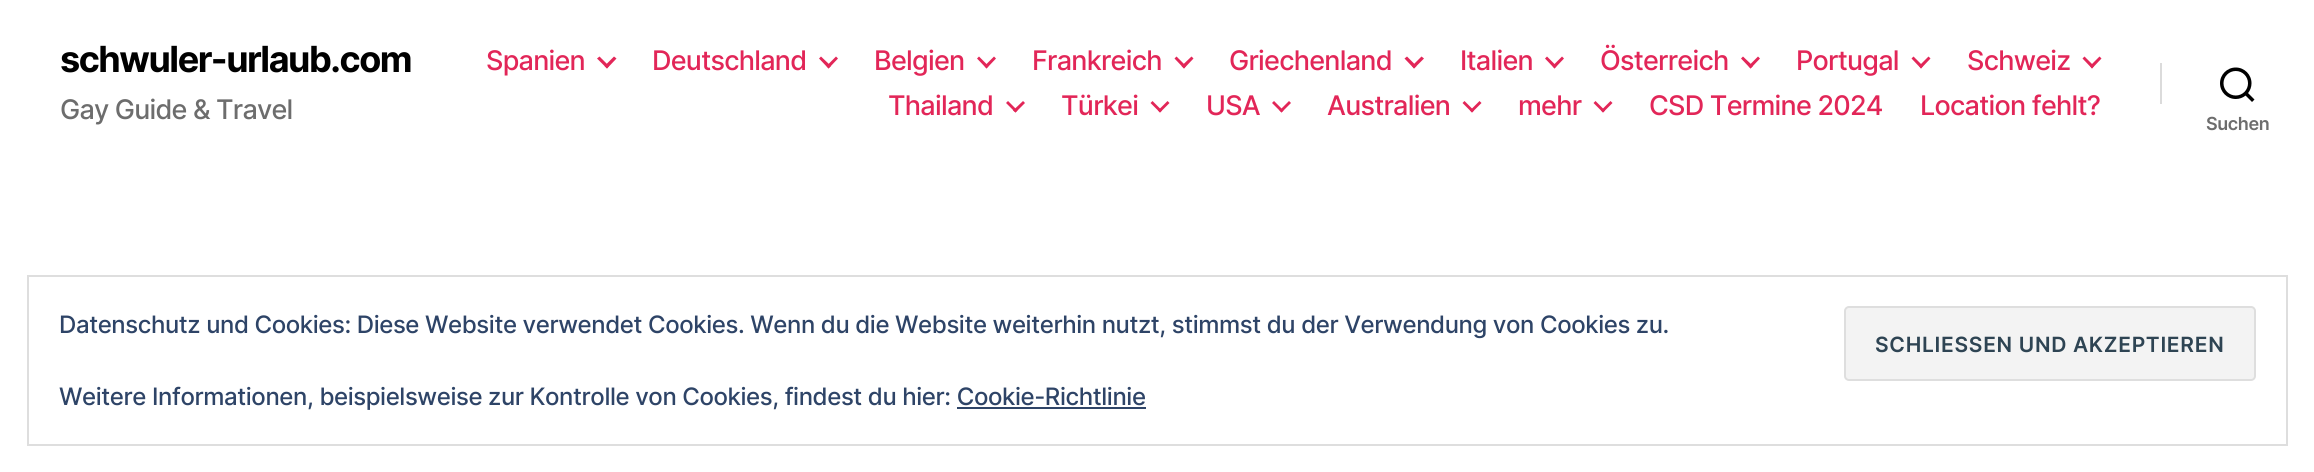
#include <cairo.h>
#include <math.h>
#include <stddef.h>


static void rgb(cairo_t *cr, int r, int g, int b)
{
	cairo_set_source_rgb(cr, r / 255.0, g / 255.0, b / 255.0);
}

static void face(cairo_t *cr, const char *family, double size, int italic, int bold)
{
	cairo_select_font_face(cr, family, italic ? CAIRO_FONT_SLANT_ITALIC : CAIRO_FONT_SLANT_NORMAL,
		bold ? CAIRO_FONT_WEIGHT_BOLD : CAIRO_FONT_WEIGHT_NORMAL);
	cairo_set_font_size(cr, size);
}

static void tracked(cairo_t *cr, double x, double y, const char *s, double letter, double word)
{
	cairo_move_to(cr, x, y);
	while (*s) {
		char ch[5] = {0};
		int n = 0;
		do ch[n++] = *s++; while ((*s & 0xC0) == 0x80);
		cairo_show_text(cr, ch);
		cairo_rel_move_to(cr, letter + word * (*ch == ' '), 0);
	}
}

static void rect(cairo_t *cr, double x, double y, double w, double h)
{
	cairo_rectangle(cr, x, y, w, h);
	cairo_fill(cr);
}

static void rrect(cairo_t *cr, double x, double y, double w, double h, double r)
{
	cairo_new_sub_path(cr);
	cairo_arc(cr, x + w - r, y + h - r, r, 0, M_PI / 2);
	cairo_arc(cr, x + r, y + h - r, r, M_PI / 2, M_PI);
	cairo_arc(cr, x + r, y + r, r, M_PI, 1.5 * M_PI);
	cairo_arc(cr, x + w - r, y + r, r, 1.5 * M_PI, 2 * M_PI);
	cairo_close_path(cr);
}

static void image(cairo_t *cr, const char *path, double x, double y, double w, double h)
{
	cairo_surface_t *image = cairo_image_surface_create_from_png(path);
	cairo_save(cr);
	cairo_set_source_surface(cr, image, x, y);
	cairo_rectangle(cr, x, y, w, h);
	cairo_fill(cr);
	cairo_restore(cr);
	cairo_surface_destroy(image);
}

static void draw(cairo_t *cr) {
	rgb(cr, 255, 255, 255);
	cairo_paint(cr);
	face(cr, "Inter", 36, 0, 1);
	rgb(cr, 0, 0, 0);
	tracked(cr, 60, 72, "schwuler-urlaub.com", -1.5, 0);
	face(cr, "Inter Medium", 27, 0, 0);
	rgb(cr, 109, 109, 109);
	tracked(cr, 60, 119, "Gay Guide & Travel", -0.8, 0);
	rgb(cr, 226, 38, 88);
	tracked(cr, 486, 70, "Spanien", -0.75, 0);
	cairo_new_path(cr);
	cairo_move_to(cr, 597, 58.5);
	cairo_line_to(cr, 599.5, 56.5);
	cairo_line_to(cr, 609, 66);
	cairo_line_to(cr, 607, 68.5);
	cairo_close_path(cr);
	cairo_fill(cr);
	cairo_new_path(cr);
	cairo_move_to(cr, 604.5, 66);
	cairo_line_to(cr, 614, 56.5);
	cairo_line_to(cr, 616.5, 58.5);
	cairo_line_to(cr, 607, 68.5);
	cairo_close_path(cr);
	cairo_fill(cr);
	tracked(cr, 652, 70, "Deutschland", -0.75, 0);
	cairo_new_path(cr);
	cairo_move_to(cr, 819, 58.5);
	cairo_line_to(cr, 821, 56.5);
	cairo_line_to(cr, 831, 66);
	cairo_line_to(cr, 828.5, 68.5);
	cairo_close_path(cr);
	cairo_fill(cr);
	cairo_new_path(cr);
	cairo_move_to(cr, 826.5, 66);
	cairo_line_to(cr, 836, 56.5);
	cairo_line_to(cr, 838, 58.5);
	cairo_line_to(cr, 828.5, 68.5);
	cairo_close_path(cr);
	cairo_fill(cr);
	tracked(cr, 874, 70, "Belgien", -0.75, 0);
	cairo_new_path(cr);
	cairo_move_to(cr, 977, 58.5);
	cairo_line_to(cr, 979, 56.5);
	cairo_line_to(cr, 988.5, 66);
	cairo_line_to(cr, 986.5, 68.5);
	cairo_close_path(cr);
	cairo_fill(cr);
	cairo_new_path(cr);
	cairo_move_to(cr, 984.5, 66);
	cairo_line_to(cr, 994, 56.5);
	cairo_line_to(cr, 996, 58.5);
	cairo_line_to(cr, 986.5, 68.5);
	cairo_close_path(cr);
	cairo_fill(cr);
	tracked(cr, 1032, 70, "Frankreich", -0.75, 0);
	cairo_new_path(cr);
	cairo_move_to(cr, 1174.5, 58.5);
	cairo_line_to(cr, 1176.5, 56.5);
	cairo_line_to(cr, 1186, 66);
	cairo_line_to(cr, 1184, 68.5);
	cairo_close_path(cr);
	cairo_fill(cr);
	cairo_new_path(cr);
	cairo_move_to(cr, 1181.5, 66);
	cairo_line_to(cr, 1191.5, 56.5);
	cairo_line_to(cr, 1193.5, 58.5);
	cairo_line_to(cr, 1184, 68.5);
	cairo_close_path(cr);
	cairo_fill(cr);
	tracked(cr, 1229, 70, "Griechenland", -0.75, 0);
	cairo_new_path(cr);
	cairo_move_to(cr, 1404.5, 58.5);
	cairo_line_to(cr, 1407, 56.5);
	cairo_line_to(cr, 1416.5, 66);
	cairo_line_to(cr, 1414, 68.5);
	cairo_close_path(cr);
	cairo_fill(cr);
	cairo_new_path(cr);
	cairo_move_to(cr, 1412, 66);
	cairo_line_to(cr, 1421.5, 56.5);
	cairo_line_to(cr, 1424, 58.5);
	cairo_line_to(cr, 1414, 68.5);
	cairo_close_path(cr);
	cairo_fill(cr);
	tracked(cr, 1460, 70, "Italien", -0.75, 0);
	cairo_new_path(cr);
	cairo_move_to(cr, 1545, 58.5);
	cairo_line_to(cr, 1547, 56.5);
	cairo_line_to(cr, 1556.5, 66);
	cairo_line_to(cr, 1554.5, 68.5);
	cairo_close_path(cr);
	cairo_fill(cr);
	cairo_new_path(cr);
	cairo_move_to(cr, 1552.5, 66);
	cairo_line_to(cr, 1562, 56.5);
	cairo_line_to(cr, 1564, 58.5);
	cairo_line_to(cr, 1554.5, 68.5);
	cairo_close_path(cr);
	cairo_fill(cr);
	tracked(cr, 1600, 70, "Österreich", -0.75, 0);
	cairo_new_path(cr);
	cairo_move_to(cr, 1741, 58.5);
	cairo_line_to(cr, 1743, 56.5);
	cairo_line_to(cr, 1753, 66);
	cairo_line_to(cr, 1750.5, 68.5);
	cairo_close_path(cr);
	cairo_fill(cr);
	cairo_new_path(cr);
	cairo_move_to(cr, 1748.5, 66);
	cairo_line_to(cr, 1758, 56.5);
	cairo_line_to(cr, 1760, 58.5);
	cairo_line_to(cr, 1750.5, 68.5);
	cairo_close_path(cr);
	cairo_fill(cr);
	tracked(cr, 1796, 70, "Portugal", -0.75, 0);
	cairo_new_path(cr);
	cairo_move_to(cr, 1911.5, 58.5);
	cairo_line_to(cr, 1913.5, 56.5);
	cairo_line_to(cr, 1923, 66);
	cairo_line_to(cr, 1921, 68.5);
	cairo_close_path(cr);
	cairo_fill(cr);
	cairo_new_path(cr);
	cairo_move_to(cr, 1919, 66);
	cairo_line_to(cr, 1928.5, 56.5);
	cairo_line_to(cr, 1930.5, 58.5);
	cairo_line_to(cr, 1921, 68.5);
	cairo_close_path(cr);
	cairo_fill(cr);
	tracked(cr, 1967, 70, "Schweiz", -0.75, 0);
	cairo_new_path(cr);
	cairo_move_to(cr, 2082.5, 58.5);
	cairo_line_to(cr, 2084.5, 56.5);
	cairo_line_to(cr, 2094, 66);
	cairo_line_to(cr, 2092, 68.5);
	cairo_close_path(cr);
	cairo_fill(cr);
	cairo_new_path(cr);
	cairo_move_to(cr, 2090, 66);
	cairo_line_to(cr, 2099.5, 56.5);
	cairo_line_to(cr, 2101.5, 58.5);
	cairo_line_to(cr, 2092, 68.5);
	cairo_close_path(cr);
	cairo_fill(cr);
	tracked(cr, 888, 115, "Thailand", -0.75, 0);
	cairo_new_path(cr);
	cairo_move_to(cr, 1006, 103);
	cairo_line_to(cr, 1008, 101);
	cairo_line_to(cr, 1017.5, 110.5);
	cairo_line_to(cr, 1015.5, 112.5);
	cairo_close_path(cr);
	cairo_fill(cr);
	cairo_new_path(cr);
	cairo_move_to(cr, 1013, 110.5);
	cairo_line_to(cr, 1023, 101);
	cairo_line_to(cr, 1025, 103);
	cairo_line_to(cr, 1015.5, 112.5);
	cairo_close_path(cr);
	cairo_fill(cr);
	tracked(cr, 1061, 115, "Türkei", -0.75, 0);
	cairo_new_path(cr);
	cairo_move_to(cr, 1150.5, 103);
	cairo_line_to(cr, 1152.5, 101);
	cairo_line_to(cr, 1162, 110.5);
	cairo_line_to(cr, 1160, 112.5);
	cairo_close_path(cr);
	cairo_fill(cr);
	cairo_new_path(cr);
	cairo_move_to(cr, 1158, 110.5);
	cairo_line_to(cr, 1167.5, 101);
	cairo_line_to(cr, 1169.5, 103);
	cairo_line_to(cr, 1160, 112.5);
	cairo_close_path(cr);
	cairo_fill(cr);
	tracked(cr, 1206, 115, "USA", -0.75, 0);
	cairo_new_path(cr);
	cairo_move_to(cr, 1272, 103);
	cairo_line_to(cr, 1274, 101);
	cairo_line_to(cr, 1283.5, 110.5);
	cairo_line_to(cr, 1281.5, 112.5);
	cairo_close_path(cr);
	cairo_fill(cr);
	cairo_new_path(cr);
	cairo_move_to(cr, 1279.5, 110.5);
	cairo_line_to(cr, 1289, 101);
	cairo_line_to(cr, 1291, 103);
	cairo_line_to(cr, 1281.5, 112.5);
	cairo_close_path(cr);
	cairo_fill(cr);
	tracked(cr, 1327, 115, "Australien", -0.75, 0);
	cairo_new_path(cr);
	cairo_move_to(cr, 1462.5, 103);
	cairo_line_to(cr, 1464.5, 101);
	cairo_line_to(cr, 1474, 110.5);
	cairo_line_to(cr, 1472, 112.5);
	cairo_close_path(cr);
	cairo_fill(cr);
	cairo_new_path(cr);
	cairo_move_to(cr, 1470, 110.5);
	cairo_line_to(cr, 1479.5, 101);
	cairo_line_to(cr, 1481.5, 103);
	cairo_line_to(cr, 1472, 112.5);
	cairo_close_path(cr);
	cairo_fill(cr);
	tracked(cr, 1518, 115, "mehr", -0.75, 0);
	cairo_new_path(cr);
	cairo_move_to(cr, 1593.5, 103);
	cairo_line_to(cr, 1595.5, 101);
	cairo_line_to(cr, 1605, 110.5);
	cairo_line_to(cr, 1603, 112.5);
	cairo_close_path(cr);
	cairo_fill(cr);
	cairo_new_path(cr);
	cairo_move_to(cr, 1601, 110.5);
	cairo_line_to(cr, 1610.5, 101);
	cairo_line_to(cr, 1612.5, 103);
	cairo_line_to(cr, 1603, 112.5);
	cairo_close_path(cr);
	cairo_fill(cr);
	tracked(cr, 1649, 115, "CSD Termine 2024", -0.75, 0);
	tracked(cr, 1920, 115, "Location fehlt?", -0.75, 0);
	rgb(cr, 219, 219, 219);
	rect(cr, 2160, 63, 2, 41);
	image(cr, "image0.png", 2220, 67, 35, 35);
	face(cr, "Inter SemiBold", 18, 0, 0);
	rgb(cr, 109, 109, 109);
	tracked(cr, 2206, 130, "Suchen", -0.41, 0);
	cairo_rectangle(cr, 28, 276, 2259, 169);
	rgb(cr, 222, 222, 222);
	cairo_stroke(cr);
	face(cr, "Inter Medium", 24, 0, 0);
	rgb(cr, 46, 68, 103);
	tracked(cr, 59, 333, "Datenschutz und Cookies: Diese Website verwendet Cookies. Wenn du die Website weiterhin nutzt, stimmst du der Verwendung von Cookies zu.", -0.41, 0);
	rgb(cr, 243, 243, 243);
	rrect(cr, 1845, 307, 410, 73, 4);
	cairo_fill_preserve(cr);
	rgb(cr, 222, 222, 222);
	cairo_stroke(cr);
	face(cr, "Inter SemiBold", 21, 0, 0);
	rgb(cr, 46, 68, 83);
	tracked(cr, 1875, 352, "SCHLIESSEN UND AKZEPTIEREN", 0.7, 0);
	face(cr, "Inter Medium", 24, 0, 0);
	rgb(cr, 46, 68, 103);
	tracked(cr, 59, 405, "Weitere Informationen, beispielsweise zur Kontrolle von Cookies, findest du hier: Cookie-Richtlinie", -0.41, 0);
	rect(cr, 957, 407, 189, 2);
}

int main(void) {
	cairo_surface_t *surface = cairo_image_surface_create(CAIRO_FORMAT_RGB24, 2314, 472);
	cairo_t *cr = cairo_create(surface);
	cairo_font_options_t *options = cairo_font_options_create();
	cairo_font_options_set_hint_metrics(options, CAIRO_HINT_METRICS_OFF);
	cairo_font_options_set_hint_style(options, CAIRO_HINT_STYLE_NONE);
	cairo_set_font_options(cr, options);
	cairo_set_miter_limit(cr, 4);
	draw(cr);
	cairo_surface_write_to_png(surface, "render.png");
	cairo_font_options_destroy(options);
	cairo_destroy(cr);
	cairo_surface_destroy(surface);
	return 0;
}
